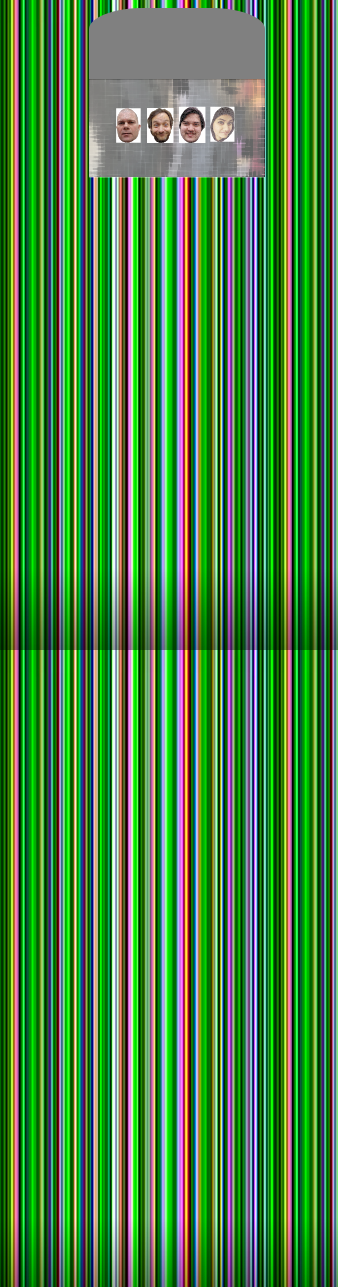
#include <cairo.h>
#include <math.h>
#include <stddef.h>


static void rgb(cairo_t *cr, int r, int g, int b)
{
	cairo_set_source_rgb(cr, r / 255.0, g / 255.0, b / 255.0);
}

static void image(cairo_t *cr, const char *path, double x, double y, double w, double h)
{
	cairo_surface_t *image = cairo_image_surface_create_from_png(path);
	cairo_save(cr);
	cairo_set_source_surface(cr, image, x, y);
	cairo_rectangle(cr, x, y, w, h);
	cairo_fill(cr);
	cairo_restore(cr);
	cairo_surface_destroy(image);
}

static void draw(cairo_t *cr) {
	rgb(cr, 255, 255, 255);
	cairo_paint(cr);
	image(cr, "image0.png", 0, 0, 338, 1287);
	rgb(cr, 128, 128, 128);
	cairo_new_path(cr);
	cairo_move_to(cr, 142, 8);
	cairo_line_to(cr, 212, 8);
	cairo_curve_to(cr, 241, 8, 265, 18, 265, 29);
	cairo_line_to(cr, 265, 79);
	cairo_line_to(cr, 89, 79);
	cairo_line_to(cr, 89, 29);
	cairo_curve_to(cr, 89, 18, 113, 8, 142, 8);
	cairo_close_path(cr);
	cairo_fill(cr);
	image(cr, "image1.png", 89, 79, 176, 98);
	image(cr, "image2.png", 89, 79, 176, 99);
}

int main(void) {
	cairo_surface_t *surface = cairo_image_surface_create(CAIRO_FORMAT_RGB24, 338, 1287);
	cairo_t *cr = cairo_create(surface);
	cairo_font_options_t *options = cairo_font_options_create();
	cairo_font_options_set_hint_metrics(options, CAIRO_HINT_METRICS_OFF);
	cairo_font_options_set_hint_style(options, CAIRO_HINT_STYLE_NONE);
	cairo_set_font_options(cr, options);
	cairo_set_miter_limit(cr, 4);
	draw(cr);
	cairo_surface_write_to_png(surface, "render.png");
	cairo_font_options_destroy(options);
	cairo_destroy(cr);
	cairo_surface_destroy(surface);
	return 0;
}
